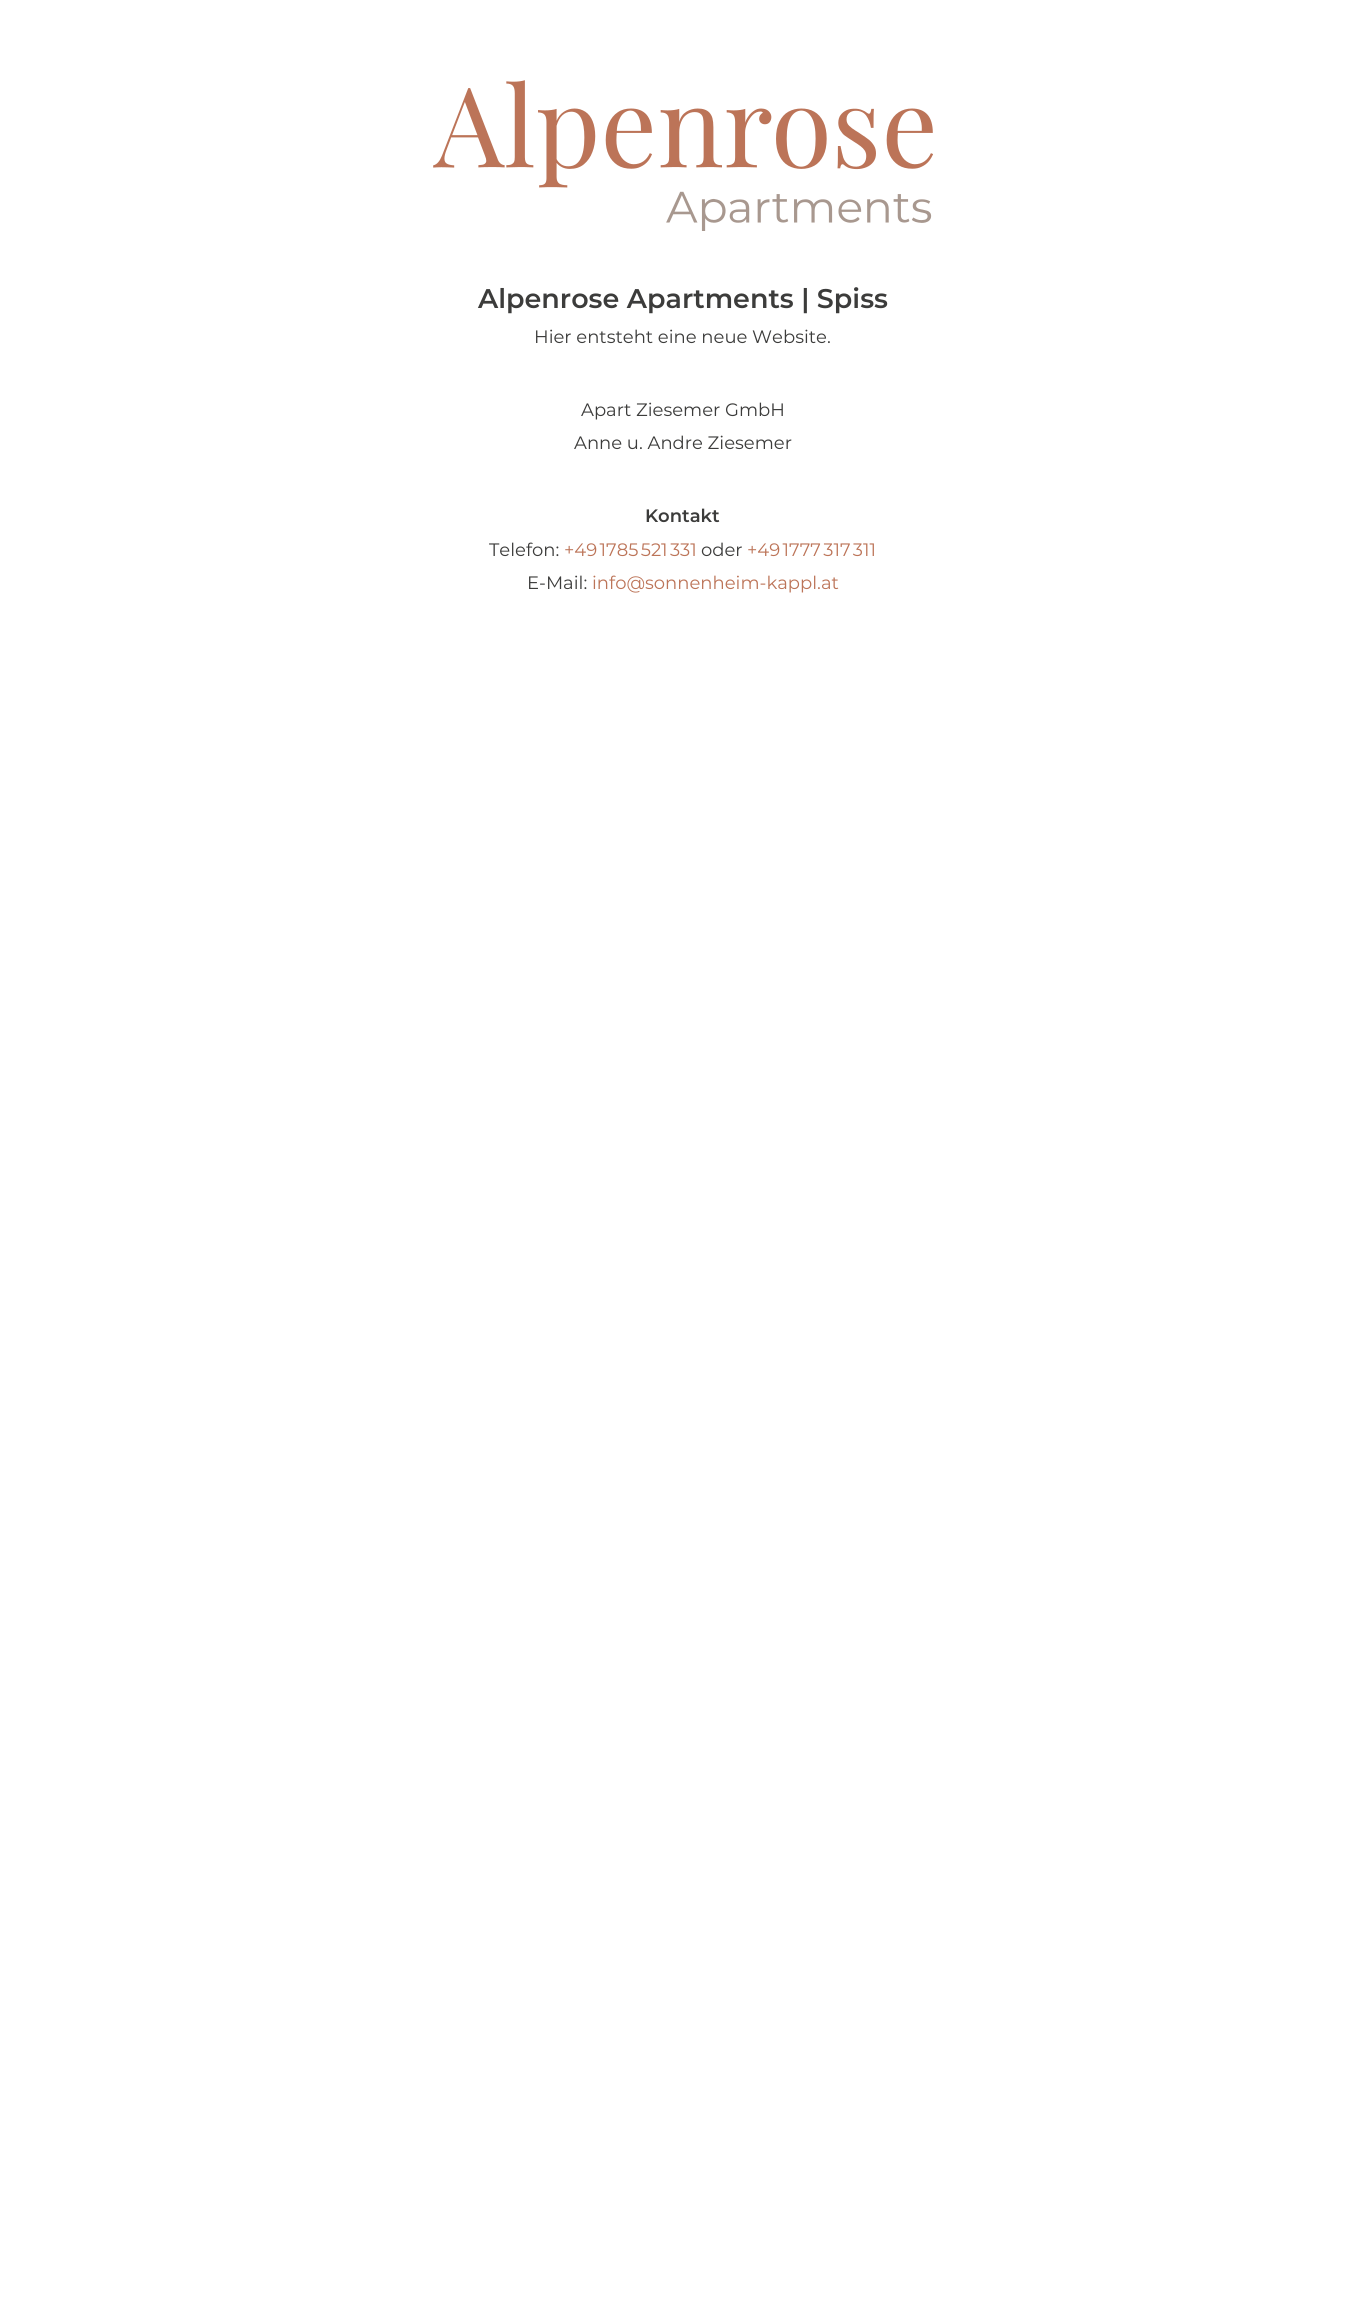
#include <cairo.h>
#include <math.h>
#include <stddef.h>


static void rgb(cairo_t *cr, int r, int g, int b)
{
	cairo_set_source_rgb(cr, r / 255.0, g / 255.0, b / 255.0);
}

static void face(cairo_t *cr, const char *family, double size, int italic, int bold)
{
	cairo_select_font_face(cr, family, italic ? CAIRO_FONT_SLANT_ITALIC : CAIRO_FONT_SLANT_NORMAL,
		bold ? CAIRO_FONT_WEIGHT_BOLD : CAIRO_FONT_WEIGHT_NORMAL);
	cairo_set_font_size(cr, size);
}

static void label(cairo_t *cr, double x, double y, const char *s)
{
	cairo_move_to(cr, x, y);
	cairo_show_text(cr, s);
}

static void image(cairo_t *cr, const char *path, double x, double y, double w, double h)
{
	cairo_surface_t *image = cairo_image_surface_create_from_png(path);
	cairo_save(cr);
	cairo_set_source_surface(cr, image, x, y);
	cairo_rectangle(cr, x, y, w, h);
	cairo_fill(cr);
	cairo_restore(cr);
	cairo_surface_destroy(image);
}

static void draw(cairo_t *cr) {
	rgb(cr, 255, 255, 255);
	cairo_paint(cr);
	image(cr, "image0.png", 433, 80, 500, 151);
	face(cr, "Montserrat SemiBold", 27, 0, 0);
	rgb(cr, 60, 60, 59);
	label(cr, 478, 308, "Alpenrose Apartments | Spiss");
	face(cr, "Montserrat", 18, 0, 0);
	label(cr, 534, 343, "Hier entsteht eine neue Website.");
	label(cr, 581, 416, "Apart Ziesemer GmbH");
	label(cr, 574, 449, "Anne u. Andre Ziesemer");
	face(cr, "Montserrat SemiBold", 18, 0, 0);
	label(cr, 645, 522, "Kontakt");
	face(cr, "Montserrat", 18, 0, 0);
	label(cr, 489, 556, "Telefon:");
	rgb(cr, 188, 116, 88);
	label(cr, 564, 556, "+49 1785 521 331");
	rgb(cr, 60, 60, 59);
	label(cr, 701, 556, "oder");
	rgb(cr, 188, 116, 88);
	label(cr, 747, 556, "+49 1777 317 311");
	rgb(cr, 60, 60, 59);
	label(cr, 527, 589, "E-Mail:");
	rgb(cr, 188, 116, 88);
	label(cr, 592, 589, "info@sonnenheim-kappl.at");
}

int main(void) {
	cairo_surface_t *surface = cairo_image_surface_create(CAIRO_FORMAT_RGB24, 1365, 2302);
	cairo_t *cr = cairo_create(surface);
	cairo_font_options_t *options = cairo_font_options_create();
	cairo_font_options_set_hint_metrics(options, CAIRO_HINT_METRICS_OFF);
	cairo_font_options_set_hint_style(options, CAIRO_HINT_STYLE_NONE);
	cairo_set_font_options(cr, options);
	cairo_set_miter_limit(cr, 4);
	draw(cr);
	cairo_surface_write_to_png(surface, "render.png");
	cairo_font_options_destroy(options);
	cairo_destroy(cr);
	cairo_surface_destroy(surface);
	return 0;
}
